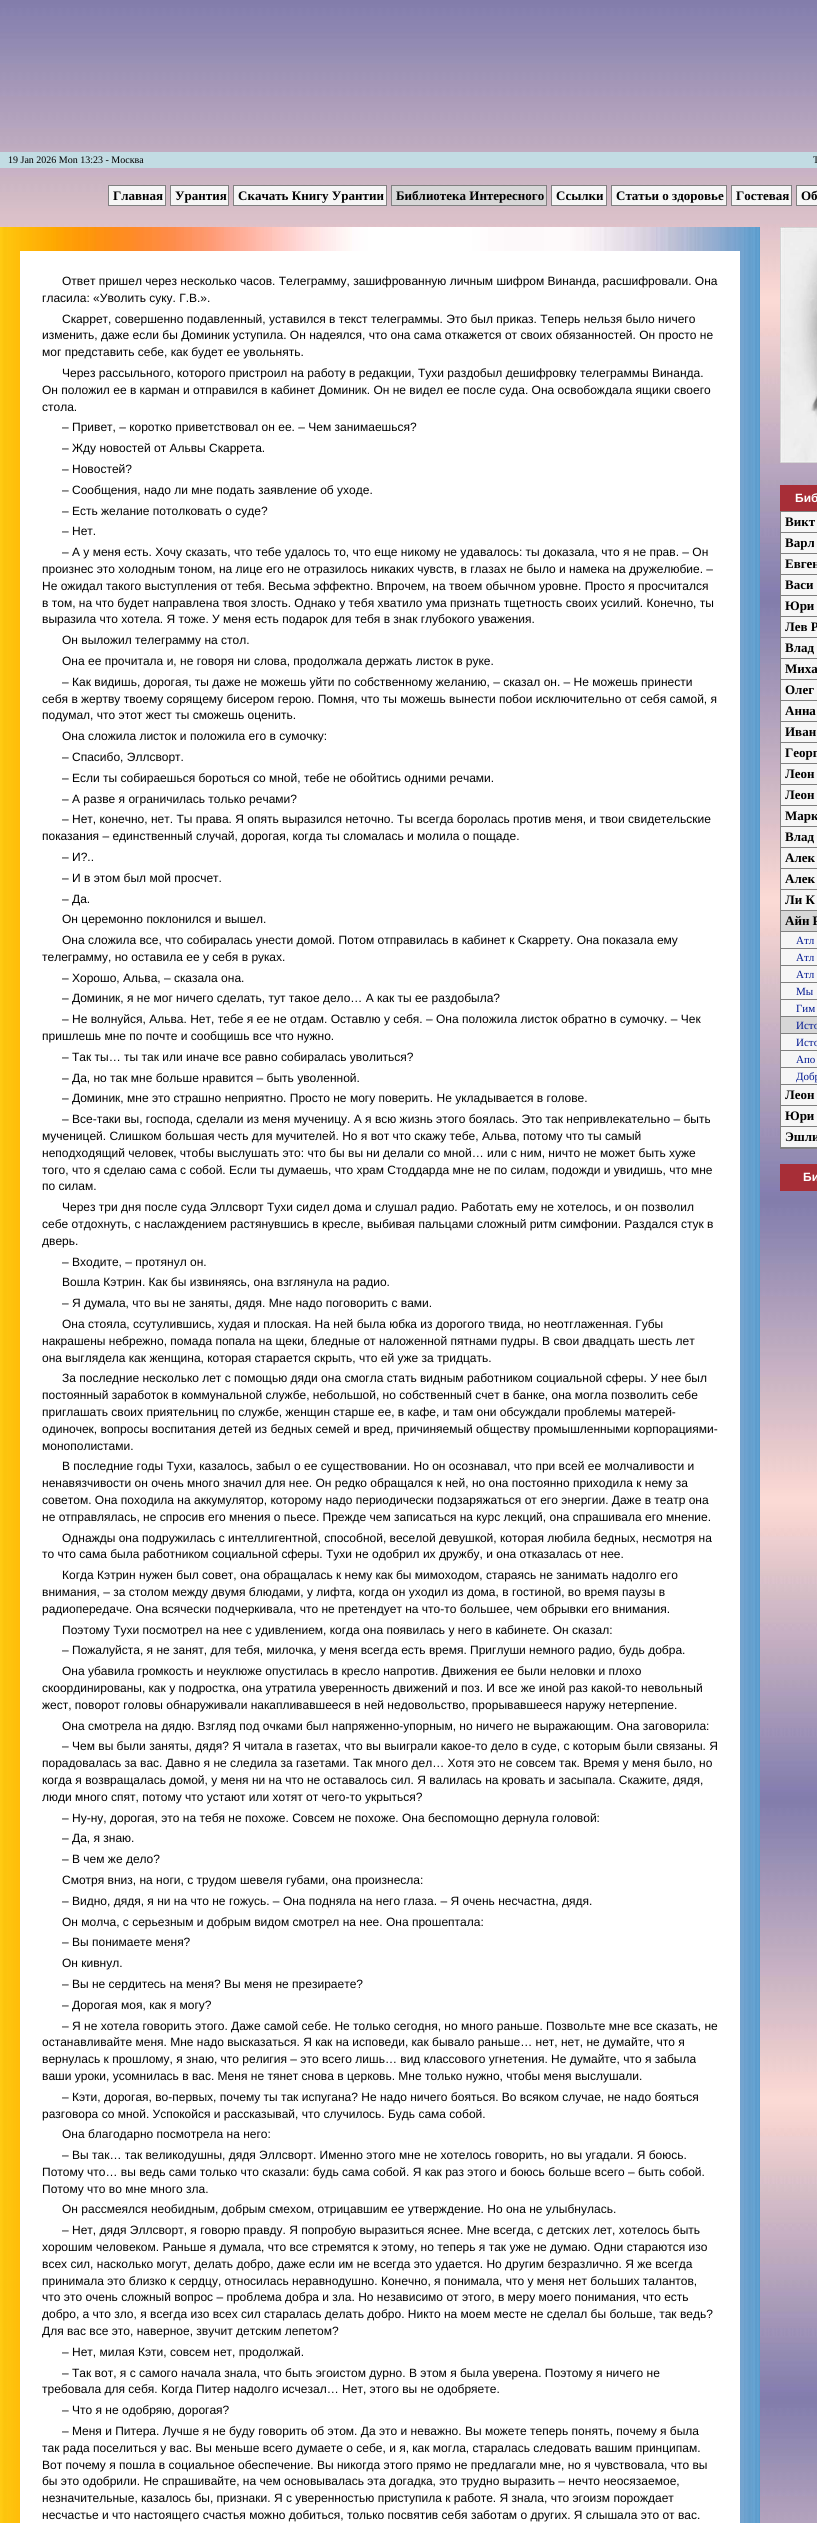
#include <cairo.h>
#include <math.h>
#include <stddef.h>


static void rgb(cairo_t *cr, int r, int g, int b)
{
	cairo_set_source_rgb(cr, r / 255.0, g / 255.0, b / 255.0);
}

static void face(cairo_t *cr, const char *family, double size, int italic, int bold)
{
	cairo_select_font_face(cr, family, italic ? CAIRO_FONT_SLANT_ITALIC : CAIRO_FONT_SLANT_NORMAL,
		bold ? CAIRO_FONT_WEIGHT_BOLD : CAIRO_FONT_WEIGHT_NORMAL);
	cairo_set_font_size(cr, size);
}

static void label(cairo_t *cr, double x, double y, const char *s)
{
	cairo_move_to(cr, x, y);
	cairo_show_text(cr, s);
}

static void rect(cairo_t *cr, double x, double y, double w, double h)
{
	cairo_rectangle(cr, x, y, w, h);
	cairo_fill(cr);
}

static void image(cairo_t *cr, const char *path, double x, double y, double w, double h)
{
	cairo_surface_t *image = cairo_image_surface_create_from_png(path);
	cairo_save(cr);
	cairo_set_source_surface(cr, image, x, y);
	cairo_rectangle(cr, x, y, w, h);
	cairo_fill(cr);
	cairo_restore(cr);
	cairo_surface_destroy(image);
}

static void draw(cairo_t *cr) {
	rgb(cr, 255, 255, 255);
	cairo_paint(cr);
	image(cr, "image0.png", 0, 0, 817, 2523);
	rgb(cr, 194, 220, 227);
	rect(cr, 0, 152, 817, 16);
	face(cr, "Liberation Serif", 10, 0, 0);
	rgb(cr, 0, 0, 0);
	label(cr, 8, 163, "19 Jan 2026 Mon 13:23 - Москва");
	label(cr, 813, 163, "Т");
	rgb(cr, 246, 246, 246);
	cairo_rectangle(cr, 108.5, 185.5, 57, 20);
	cairo_fill_preserve(cr);
	rgb(cr, 128, 128, 128);
	cairo_set_line_width(cr, 1);
	cairo_stroke(cr);
	face(cr, "Liberation Serif", 13, 0, 1);
	rgb(cr, 0, 0, 0);
	label(cr, 113, 200, "Главная");
	rgb(cr, 246, 246, 246);
	cairo_rectangle(cr, 170.5, 185.5, 58, 20);
	cairo_fill_preserve(cr);
	rgb(cr, 128, 128, 128);
	cairo_stroke(cr);
	rgb(cr, 0, 0, 0);
	label(cr, 175, 200, "Урантия");
	rgb(cr, 246, 246, 246);
	cairo_rectangle(cr, 233.5, 185.5, 153, 20);
	cairo_fill_preserve(cr);
	rgb(cr, 128, 128, 128);
	cairo_stroke(cr);
	rgb(cr, 0, 0, 0);
	label(cr, 238, 200, "Скачать Книгу Урантии");
	rgb(cr, 215, 215, 215);
	cairo_rectangle(cr, 391.5, 185.5, 155, 20);
	cairo_fill_preserve(cr);
	rgb(cr, 128, 128, 128);
	cairo_stroke(cr);
	rgb(cr, 0, 0, 0);
	label(cr, 396, 200, "Библиотека Интересного");
	rgb(cr, 246, 246, 246);
	cairo_rectangle(cr, 551.5, 185.5, 55, 20);
	cairo_fill_preserve(cr);
	rgb(cr, 128, 128, 128);
	cairo_stroke(cr);
	rgb(cr, 0, 0, 0);
	label(cr, 556, 200, "Ссылки");
	rgb(cr, 246, 246, 246);
	cairo_rectangle(cr, 611.5, 185.5, 115, 20);
	cairo_fill_preserve(cr);
	rgb(cr, 128, 128, 128);
	cairo_stroke(cr);
	rgb(cr, 0, 0, 0);
	label(cr, 616, 200, "Статьи о здоровье");
	rgb(cr, 246, 246, 246);
	cairo_rectangle(cr, 731.5, 185.5, 60, 20);
	cairo_fill_preserve(cr);
	rgb(cr, 128, 128, 128);
	cairo_stroke(cr);
	rgb(cr, 0, 0, 0);
	label(cr, 736, 200, "Гостевая");
	rgb(cr, 246, 246, 246);
	cairo_rectangle(cr, 796.5, 185.5, 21, 20);
	cairo_fill_preserve(cr);
	rgb(cr, 128, 128, 128);
	cairo_stroke(cr);
	rgb(cr, 0, 0, 0);
	label(cr, 801, 200, "Об");
	image(cr, "image1.png", 0, 227, 760, 2296);
	rgb(cr, 255, 255, 255);
	rect(cr, 20, 251, 720, 2272);
	face(cr, "Liberation Sans", 12, 0, 0);
	rgb(cr, 0, 0, 0);
	label(cr, 62, 285, "Ответ пришел через несколько часов. Телеграмму, зашифрованную личным шифром Винанда, расшифровали. Она");
	label(cr, 42, 302, "гласила: «Уволить суку. Г.В.».");
	label(cr, 62, 323, "Скаррет, совершенно подавленный, уставился в текст телеграммы. Это был приказ. Теперь нельзя было ничего");
	label(cr, 42, 339, "изменить, даже если бы Доминик уступила. Он надеялся, что она сама откажется от своих обязанностей. Он просто не");
	label(cr, 42, 356, "мог представить себе, как будет ее увольнять.");
	label(cr, 62, 377, "Через рассыльного, которого пристроил на работу в редакции, Тухи раздобыл дешифровку телеграммы Винанда.");
	label(cr, 42, 394, "Он положил ее в карман и отправился в кабинет Доминик. Он не видел ее после суда. Она освобождала ящики своего");
	label(cr, 42, 411, "стола.");
	label(cr, 62, 431, "– Привет, – коротко приветствовал он ее. – Чем занимаешься?");
	label(cr, 62, 452, "– Жду новостей от Альвы Скаррета.");
	label(cr, 62, 473, "– Новостей?");
	label(cr, 62, 494, "– Сообщения, надо ли мне подать заявление об уходе.");
	label(cr, 62, 515, "– Есть желание потолковать о суде?");
	label(cr, 62, 535, "– Нет.");
	label(cr, 62, 556, "– А у меня есть. Хочу сказать, что тебе удалось то, что еще никому не удавалось: ты доказала, что я не прав. – Он");
	label(cr, 42, 573, "произнес это холодным тоном, на лице его не отразилось никаких чувств, в глазах не было и намека на дружелюбие. –");
	label(cr, 42, 590, "Не ожидал такого выступления от тебя. Весьма эффектно. Впрочем, на твоем обычном уровне. Просто я просчитался");
	label(cr, 42, 607, "в том, на что будет направлена твоя злость. Однако у тебя хватило ума признать тщетность своих усилий. Конечно, ты");
	label(cr, 42, 623, "выразила что хотела. Я тоже. У меня есть подарок для тебя в знак глубокого уважения.");
	label(cr, 62, 644, "Он выложил телеграмму на стол.");
	label(cr, 62, 665, "Она ее прочитала и, не говоря ни слова, продолжала держать листок в руке.");
	label(cr, 62, 686, "– Как видишь, дорогая, ты даже не можешь уйти по собственному желанию, – сказал он. – Не можешь принести");
	label(cr, 42, 703, "себя в жертву твоему сорящему бисером герою. Помня, что ты можешь вынести побои исключительно от себя самой, я");
	label(cr, 42, 719, "подумал, что этот жест ты сможешь оценить.");
	label(cr, 62, 740, "Она сложила листок и положила его в сумочку:");
	label(cr, 62, 761, "– Спасибо, Эллсворт.");
	label(cr, 62, 782, "– Если ты собираешься бороться со мной, тебе не обойтись одними речами.");
	label(cr, 62, 803, "– А разве я ограничилась только речами?");
	label(cr, 62, 823, "– Нет, конечно, нет. Ты права. Я опять выразился неточно. Ты всегда боролась против меня, и твои свидетельские");
	label(cr, 42, 840, "показания – единственный случай, дорогая, когда ты сломалась и молила о пощаде.");
	label(cr, 62, 861, "– И?..");
	label(cr, 62, 882, "– И в этом был мой просчет.");
	label(cr, 62, 903, "– Да.");
	label(cr, 62, 923, "Он церемонно поклонился и вышел.");
	label(cr, 62, 944, "Она сложила все, что собиралась унести домой. Потом отправилась в кабинет к Скаррету. Она показала ему");
	label(cr, 42, 961, "телеграмму, но оставила ее у себя в руках.");
	label(cr, 62, 982, "– Хорошо, Альва, – сказала она.");
	label(cr, 62, 1002, "– Доминик, я не мог ничего сделать, тут такое дело… А как ты ее раздобыла?");
	label(cr, 62, 1023, "– Не волнуйся, Альва. Нет, тебе я ее не отдам. Оставлю у себя. – Она положила листок обратно в сумочку. – Чек");
	label(cr, 42, 1040, "пришлешь мне по почте и сообщишь все что нужно.");
	label(cr, 62, 1061, "– Так ты… ты так или иначе все равно собиралась уволиться?");
	label(cr, 62, 1082, "– Да, но так мне больше нравится – быть уволенной.");
	label(cr, 62, 1102, "– Доминик, мне это страшно неприятно. Просто не могу поверить. Не укладывается в голове.");
	label(cr, 62, 1123, "– Все-таки вы, господа, сделали из меня мученицу. А я всю жизнь этого боялась. Это так непривлекательно – быть");
	label(cr, 42, 1140, "мученицей. Слишком большая честь для мучителей. Но я вот что скажу тебе, Альва, потому что ты самый");
	label(cr, 42, 1157, "неподходящий человек, чтобы выслушать это: что бы вы ни делали со мной… или с ним, ничто не может быть хуже");
	label(cr, 42, 1174, "того, что я сделаю сама с собой. Если ты думаешь, что храм Стоддарда мне не по силам, подожди и увидишь, что мне");
	label(cr, 42, 1190, "по силам.");
	label(cr, 62, 1211, "Через три дня после суда Эллсворт Тухи сидел дома и слушал радио. Работать ему не хотелось, и он позволил");
	label(cr, 42, 1228, "себе отдохнуть, с наслаждением растянувшись в кресле, выбивая пальцами сложный ритм симфонии. Раздался стук в");
	label(cr, 42, 1245, "дверь.");
	label(cr, 62, 1266, "– Входите, – протянул он.");
	label(cr, 62, 1286, "Вошла Кэтрин. Как бы извиняясь, она взглянула на радио.");
	label(cr, 62, 1307, "– Я думала, что вы не заняты, дядя. Мне надо поговорить с вами.");
	label(cr, 62, 1328, "Она стояла, ссутулившись, худая и плоская. На ней была юбка из дорогого твида, но неотглаженная. Губы");
	label(cr, 42, 1345, "накрашены небрежно, помада попала на щеки, бледные от наложенной пятнами пудры. В свои двадцать шесть лет");
	label(cr, 42, 1362, "она выглядела как женщина, которая старается скрыть, что ей уже за тридцать.");
	label(cr, 62, 1382, "За последние несколько лет с помощью дяди она смогла стать видным работником социальной сферы. У нее был");
	label(cr, 42, 1399, "постоянный заработок в коммунальной службе, небольшой, но собственный счет в банке, она могла позволить себе");
	label(cr, 42, 1416, "приглашать своих приятельниц по службе, женщин старше ее, в кафе, и там они обсуждали проблемы матерей-");
	label(cr, 42, 1433, "одиночек, вопросы воспитания детей из бедных семей и вред, причиняемый обществу промышленными корпорациями-");
	label(cr, 42, 1450, "монополистами.");
	label(cr, 62, 1470, "В последние годы Тухи, казалось, забыл о ее существовании. Но он осознавал, что при всей ее молчаливости и");
	label(cr, 42, 1487, "ненавязчивости он очень много значил для нее. Он редко обращался к ней, но она постоянно приходила к нему за");
	label(cr, 42, 1504, "советом. Она походила на аккумулятор, которому надо периодически подзаряжаться от его энергии. Даже в театр она");
	label(cr, 42, 1521, "не отправлялась, не спросив его мнения о пьесе. Прежде чем записаться на курс лекций, она спрашивала его мнение.");
	label(cr, 62, 1542, "Однажды она подружилась с интеллигентной, способной, веселой девушкой, которая любила бедных, несмотря на");
	label(cr, 42, 1558, "то что сама была работником социальной сферы. Тухи не одобрил их дружбу, и она отказалась от нее.");
	label(cr, 62, 1579, "Когда Кэтрин нужен был совет, она обращалась к нему как бы мимоходом, стараясь не занимать надолго его");
	label(cr, 42, 1596, "внимания, – за столом между двумя блюдами, у лифта, когда он уходил из дома, в гостиной, во время паузы в");
	label(cr, 42, 1613, "радиопередаче. Она всячески подчеркивала, что не претендует на что-то большее, чем обрывки его внимания.");
	label(cr, 62, 1634, "Поэтому Тухи посмотрел на нее с удивлением, когда она появилась у него в кабинете. Он сказал:");
	label(cr, 62, 1654, "– Пожалуйста, я не занят, для тебя, милочка, у меня всегда есть время. Приглуши немного радио, будь добра.");
	label(cr, 62, 1675, "Она убавила громкость и неуклюже опустилась в кресло напротив. Движения ее были неловки и плохо");
	label(cr, 42, 1692, "скоординированы, как у подростка, она утратила уверенность движений и поз. И все же иной раз какой-то невольный");
	label(cr, 42, 1709, "жест, поворот головы обнаруживали накапливавшееся в ней недовольство, прорывавшееся наружу нетерпение.");
	label(cr, 62, 1730, "Она смотрела на дядю. Взгляд под очками был напряженно-упорным, но ничего не выражающим. Она заговорила:");
	label(cr, 62, 1750, "– Чем вы были заняты, дядя? Я читала в газетах, что вы выиграли какое-то дело в суде, с которым были связаны. Я");
	label(cr, 42, 1767, "порадовалась за вас. Давно я не следила за газетами. Так много дел… Хотя это не совсем так. Время у меня было, но");
	label(cr, 42, 1784, "когда я возвращалась домой, у меня ни на что не оставалось сил. Я валилась на кровать и засыпала. Скажите, дядя,");
	label(cr, 42, 1801, "люди много спят, потому что устают или хотят от чего-то укрыться?");
	label(cr, 62, 1822, "– Ну-ну, дорогая, это на тебя не похоже. Совсем не похоже. Она беспомощно дернула головой:");
	label(cr, 62, 1842, "– Да, я знаю.");
	label(cr, 62, 1863, "– В чем же дело?");
	label(cr, 62, 1884, "Смотря вниз, на ноги, с трудом шевеля губами, она произнесла:");
	label(cr, 62, 1905, "– Видно, дядя, я ни на что не гожусь. – Она подняла на него глаза. – Я очень несчастна, дядя.");
	label(cr, 62, 1926, "Он молча, с серьезным и добрым видом смотрел на нее. Она прошептала:");
	label(cr, 62, 1946, "– Вы понимаете меня?");
	label(cr, 62, 1967, "Он кивнул.");
	label(cr, 62, 1988, "– Вы не сердитесь на меня? Вы меня не презираете?");
	label(cr, 62, 2009, "– Дорогая моя, как я могу?");
	label(cr, 62, 2030, "– Я не хотела говорить этого. Даже самой себе. Не только сегодня, но много раньше. Позвольте мне все сказать, не");
	label(cr, 42, 2046, "останавливайте меня. Мне надо высказаться. Я как на исповеди, как бывало раньше… нет, нет, не думайте, что я");
	label(cr, 42, 2063, "вернулась к прошлому, я знаю, что религия – это всего лишь… вид классового угнетения. Не думайте, что я забыла");
	label(cr, 42, 2080, "ваши уроки, усомнилась в вас. Меня не тянет снова в церковь. Мне только нужно, чтобы меня выслушали.");
	label(cr, 62, 2101, "– Кэти, дорогая, во-первых, почему ты так испугана? Не надо ничего бояться. Во всяком случае, не надо бояться");
	label(cr, 42, 2118, "разговора со мной. Успокойся и рассказывай, что случилось. Будь сама собой.");
	label(cr, 62, 2138, "Она благодарно посмотрела на него:");
	label(cr, 62, 2159, "– Вы так… так великодушны, дядя Эллсворт. Именно этого мне не хотелось говорить, но вы угадали. Я боюсь.");
	label(cr, 42, 2176, "Потому что… вы ведь сами только что сказали: будь сама собой. Я как раз этого и боюсь больше всего – быть собой.");
	label(cr, 42, 2193, "Потому что во мне много зла.");
	label(cr, 62, 2213, "Он рассмеялся необидным, добрым смехом, отрицавшим ее утверждение. Но она не улыбнулась.");
	label(cr, 62, 2234, "– Нет, дядя Эллсворт, я говорю правду. Я попробую выразиться яснее. Мне всегда, с детских лет, хотелось быть");
	label(cr, 42, 2251, "хорошим человеком. Раньше я думала, что все стремятся к этому, но теперь я так уже не думаю. Одни стараются изо");
	label(cr, 42, 2268, "всех сил, насколько могут, делать добро, даже если им не всегда это удается. Но другим безразлично. Я же всегда");
	label(cr, 42, 2285, "принимала это близко к сердцу, относилась неравнодушно. Конечно, я понимала, что у меня нет больших талантов,");
	label(cr, 42, 2301, "что это очень сложный вопрос – проблема добра и зла. Но независимо от этого, в меру моего понимания, что есть");
	label(cr, 42, 2318, "добро, а что зло, я всегда изо всех сил старалась делать добро. Никто на моем месте не сделал бы больше, так ведь?");
	label(cr, 42, 2335, "Для вас все это, наверное, звучит детским лепетом?");
	label(cr, 62, 2356, "– Нет, милая Кэти, совсем нет, продолжай.");
	label(cr, 62, 2377, "– Так вот, я с самого начала знала, что быть эгоистом дурно. В этом я была уверена. Поэтому я ничего не");
	label(cr, 42, 2393, "требовала для себя. Когда Питер надолго исчезал… Нет, этого вы не одобряете.");
	label(cr, 62, 2414, "– Что я не одобряю, дорогая?");
	label(cr, 62, 2435, "– Меня и Питера. Лучше я не буду говорить об этом. Да это и неважно. Вы можете теперь понять, почему я была");
	label(cr, 42, 2452, "так рада поселиться у вас. Вы меньше всего думаете о себе, и я, как могла, старалась следовать вашим принципам.");
	label(cr, 42, 2469, "Вот почему я пошла в социальное обеспечение. Вы никогда этого прямо не предлагали мне, но я чувствовала, что вы");
	label(cr, 42, 2485, "бы это одобрили. Не спрашивайте, на чем основывалась эта догадка, это трудно выразить – нечто неосязаемое,");
	label(cr, 42, 2502, "незначительные, казалось бы, признаки. Я с уверенностью приступила к работе. Я знала, что эгоизм порождает");
	label(cr, 42, 2519, "несчастье и что настоящего счастья можно добиться, только посвятив себя заботам о других. Я слышала это от вас.");
	image(cr, "image2.png", 780, 227, 37, 236);
	rgb(cr, 167, 46, 55);
	rect(cr, 780, 485, 37, 26);
	face(cr, "Liberation Sans", 12, 0, 1);
	rgb(cr, 255, 255, 255);
	label(cr, 795, 502, "Биб");
	rgb(cr, 246, 246, 246);
	rect(cr, 781, 512, 36, 635);
	cairo_rectangle(cr, 780.5, 511.5, 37, 637);
	rgb(cr, 128, 128, 128);
	cairo_stroke(cr);
	rect(cr, 781, 532, 36, 1);
	face(cr, "Liberation Serif", 13, 0, 1);
	rgb(cr, 0, 0, 0);
	label(cr, 785, 526, "Викт");
	rgb(cr, 128, 128, 128);
	rect(cr, 781, 553, 36, 1);
	rgb(cr, 0, 0, 0);
	label(cr, 785, 547, "Варл");
	rgb(cr, 128, 128, 128);
	rect(cr, 781, 574, 36, 1);
	rgb(cr, 0, 0, 0);
	label(cr, 785, 568, "Евген");
	rgb(cr, 128, 128, 128);
	rect(cr, 781, 595, 36, 1);
	rgb(cr, 0, 0, 0);
	label(cr, 785, 589, "Васи");
	rgb(cr, 128, 128, 128);
	rect(cr, 781, 616, 36, 1);
	rgb(cr, 0, 0, 0);
	label(cr, 785, 610, "Юри");
	rgb(cr, 128, 128, 128);
	rect(cr, 781, 637, 36, 1);
	rgb(cr, 0, 0, 0);
	label(cr, 785, 631, "Лев Р");
	rgb(cr, 128, 128, 128);
	rect(cr, 781, 658, 36, 1);
	rgb(cr, 0, 0, 0);
	label(cr, 785, 652, "Влад");
	rgb(cr, 128, 128, 128);
	rect(cr, 781, 679, 36, 1);
	rgb(cr, 0, 0, 0);
	label(cr, 785, 673, "Миха");
	rgb(cr, 128, 128, 128);
	rect(cr, 781, 700, 36, 1);
	rgb(cr, 0, 0, 0);
	label(cr, 785, 694, "Олег");
	rgb(cr, 128, 128, 128);
	rect(cr, 781, 721, 36, 1);
	rgb(cr, 0, 0, 0);
	label(cr, 785, 715, "Анна");
	rgb(cr, 128, 128, 128);
	rect(cr, 781, 742, 36, 1);
	rgb(cr, 0, 0, 0);
	label(cr, 785, 736, "Иван");
	rgb(cr, 128, 128, 128);
	rect(cr, 781, 763, 36, 1);
	rgb(cr, 0, 0, 0);
	label(cr, 785, 757, "Георг");
	rgb(cr, 128, 128, 128);
	rect(cr, 781, 784, 36, 1);
	rgb(cr, 0, 0, 0);
	label(cr, 785, 778, "Леон");
	rgb(cr, 128, 128, 128);
	rect(cr, 781, 805, 36, 1);
	rgb(cr, 0, 0, 0);
	label(cr, 785, 799, "Леон");
	rgb(cr, 128, 128, 128);
	rect(cr, 781, 826, 36, 1);
	rgb(cr, 0, 0, 0);
	label(cr, 785, 820, "Марк");
	rgb(cr, 128, 128, 128);
	rect(cr, 781, 847, 36, 1);
	rgb(cr, 0, 0, 0);
	label(cr, 785, 841, "Влад");
	rgb(cr, 128, 128, 128);
	rect(cr, 781, 868, 36, 1);
	rgb(cr, 0, 0, 0);
	label(cr, 785, 862, "Алек");
	rgb(cr, 128, 128, 128);
	rect(cr, 781, 889, 36, 1);
	rgb(cr, 0, 0, 0);
	label(cr, 785, 883, "Алек");
	rgb(cr, 128, 128, 128);
	rect(cr, 781, 910, 36, 1);
	rgb(cr, 0, 0, 0);
	label(cr, 785, 904, "Ли К");
	rgb(cr, 215, 215, 215);
	rect(cr, 781, 911, 36, 20);
	rgb(cr, 128, 128, 128);
	rect(cr, 781, 931, 36, 1);
	rgb(cr, 0, 0, 0);
	label(cr, 785, 925, "Айн Р");
	rgb(cr, 128, 128, 128);
	rect(cr, 781, 948, 36, 1);
	face(cr, "Liberation Serif", 11, 0, 0);
	rgb(cr, 0, 23, 144);
	label(cr, 796, 944, "Атл");
	rgb(cr, 128, 128, 128);
	rect(cr, 781, 965, 36, 1);
	rgb(cr, 0, 23, 144);
	label(cr, 796, 961, "Атл");
	rgb(cr, 128, 128, 128);
	rect(cr, 781, 982, 36, 1);
	rgb(cr, 0, 23, 144);
	label(cr, 796, 978, "Атл");
	rgb(cr, 128, 128, 128);
	rect(cr, 781, 999, 36, 1);
	rgb(cr, 0, 23, 144);
	label(cr, 796, 995, "Мы");
	rgb(cr, 128, 128, 128);
	rect(cr, 781, 1016, 36, 1);
	rgb(cr, 0, 23, 144);
	label(cr, 796, 1012, "Гим");
	rgb(cr, 215, 215, 215);
	rect(cr, 781, 1017, 36, 16);
	rgb(cr, 128, 128, 128);
	rect(cr, 781, 1033, 36, 1);
	rgb(cr, 0, 23, 144);
	label(cr, 796, 1029, "Исто");
	rgb(cr, 128, 128, 128);
	rect(cr, 781, 1050, 36, 1);
	rgb(cr, 0, 23, 144);
	label(cr, 796, 1046, "Исто");
	rgb(cr, 128, 128, 128);
	rect(cr, 781, 1067, 36, 1);
	rgb(cr, 0, 23, 144);
	label(cr, 796, 1063, "Апо");
	rgb(cr, 128, 128, 128);
	rect(cr, 781, 1084, 36, 1);
	rgb(cr, 0, 23, 144);
	label(cr, 796, 1080, "Добр");
	rgb(cr, 128, 128, 128);
	rect(cr, 781, 1105, 36, 1);
	face(cr, "Liberation Serif", 13, 0, 1);
	rgb(cr, 0, 0, 0);
	label(cr, 785, 1099, "Леон");
	rgb(cr, 128, 128, 128);
	rect(cr, 781, 1126, 36, 1);
	rgb(cr, 0, 0, 0);
	label(cr, 785, 1120, "Юри");
	rgb(cr, 128, 128, 128);
	rect(cr, 781, 1147, 36, 1);
	rgb(cr, 0, 0, 0);
	label(cr, 785, 1141, "Эшли");
	rgb(cr, 167, 46, 55);
	rect(cr, 780, 1164, 37, 27);
	face(cr, "Liberation Sans", 12, 0, 1);
	rgb(cr, 255, 255, 255);
	label(cr, 803, 1181, "Би");
}

int main(void) {
	cairo_surface_t *surface = cairo_image_surface_create(CAIRO_FORMAT_RGB24, 817, 2523);
	cairo_t *cr = cairo_create(surface);
	cairo_font_options_t *options = cairo_font_options_create();
	cairo_font_options_set_hint_metrics(options, CAIRO_HINT_METRICS_OFF);
	cairo_font_options_set_hint_style(options, CAIRO_HINT_STYLE_NONE);
	cairo_set_font_options(cr, options);
	cairo_set_miter_limit(cr, 4);
	draw(cr);
	cairo_surface_write_to_png(surface, "render.png");
	cairo_font_options_destroy(options);
	cairo_destroy(cr);
	cairo_surface_destroy(surface);
	return 0;
}
